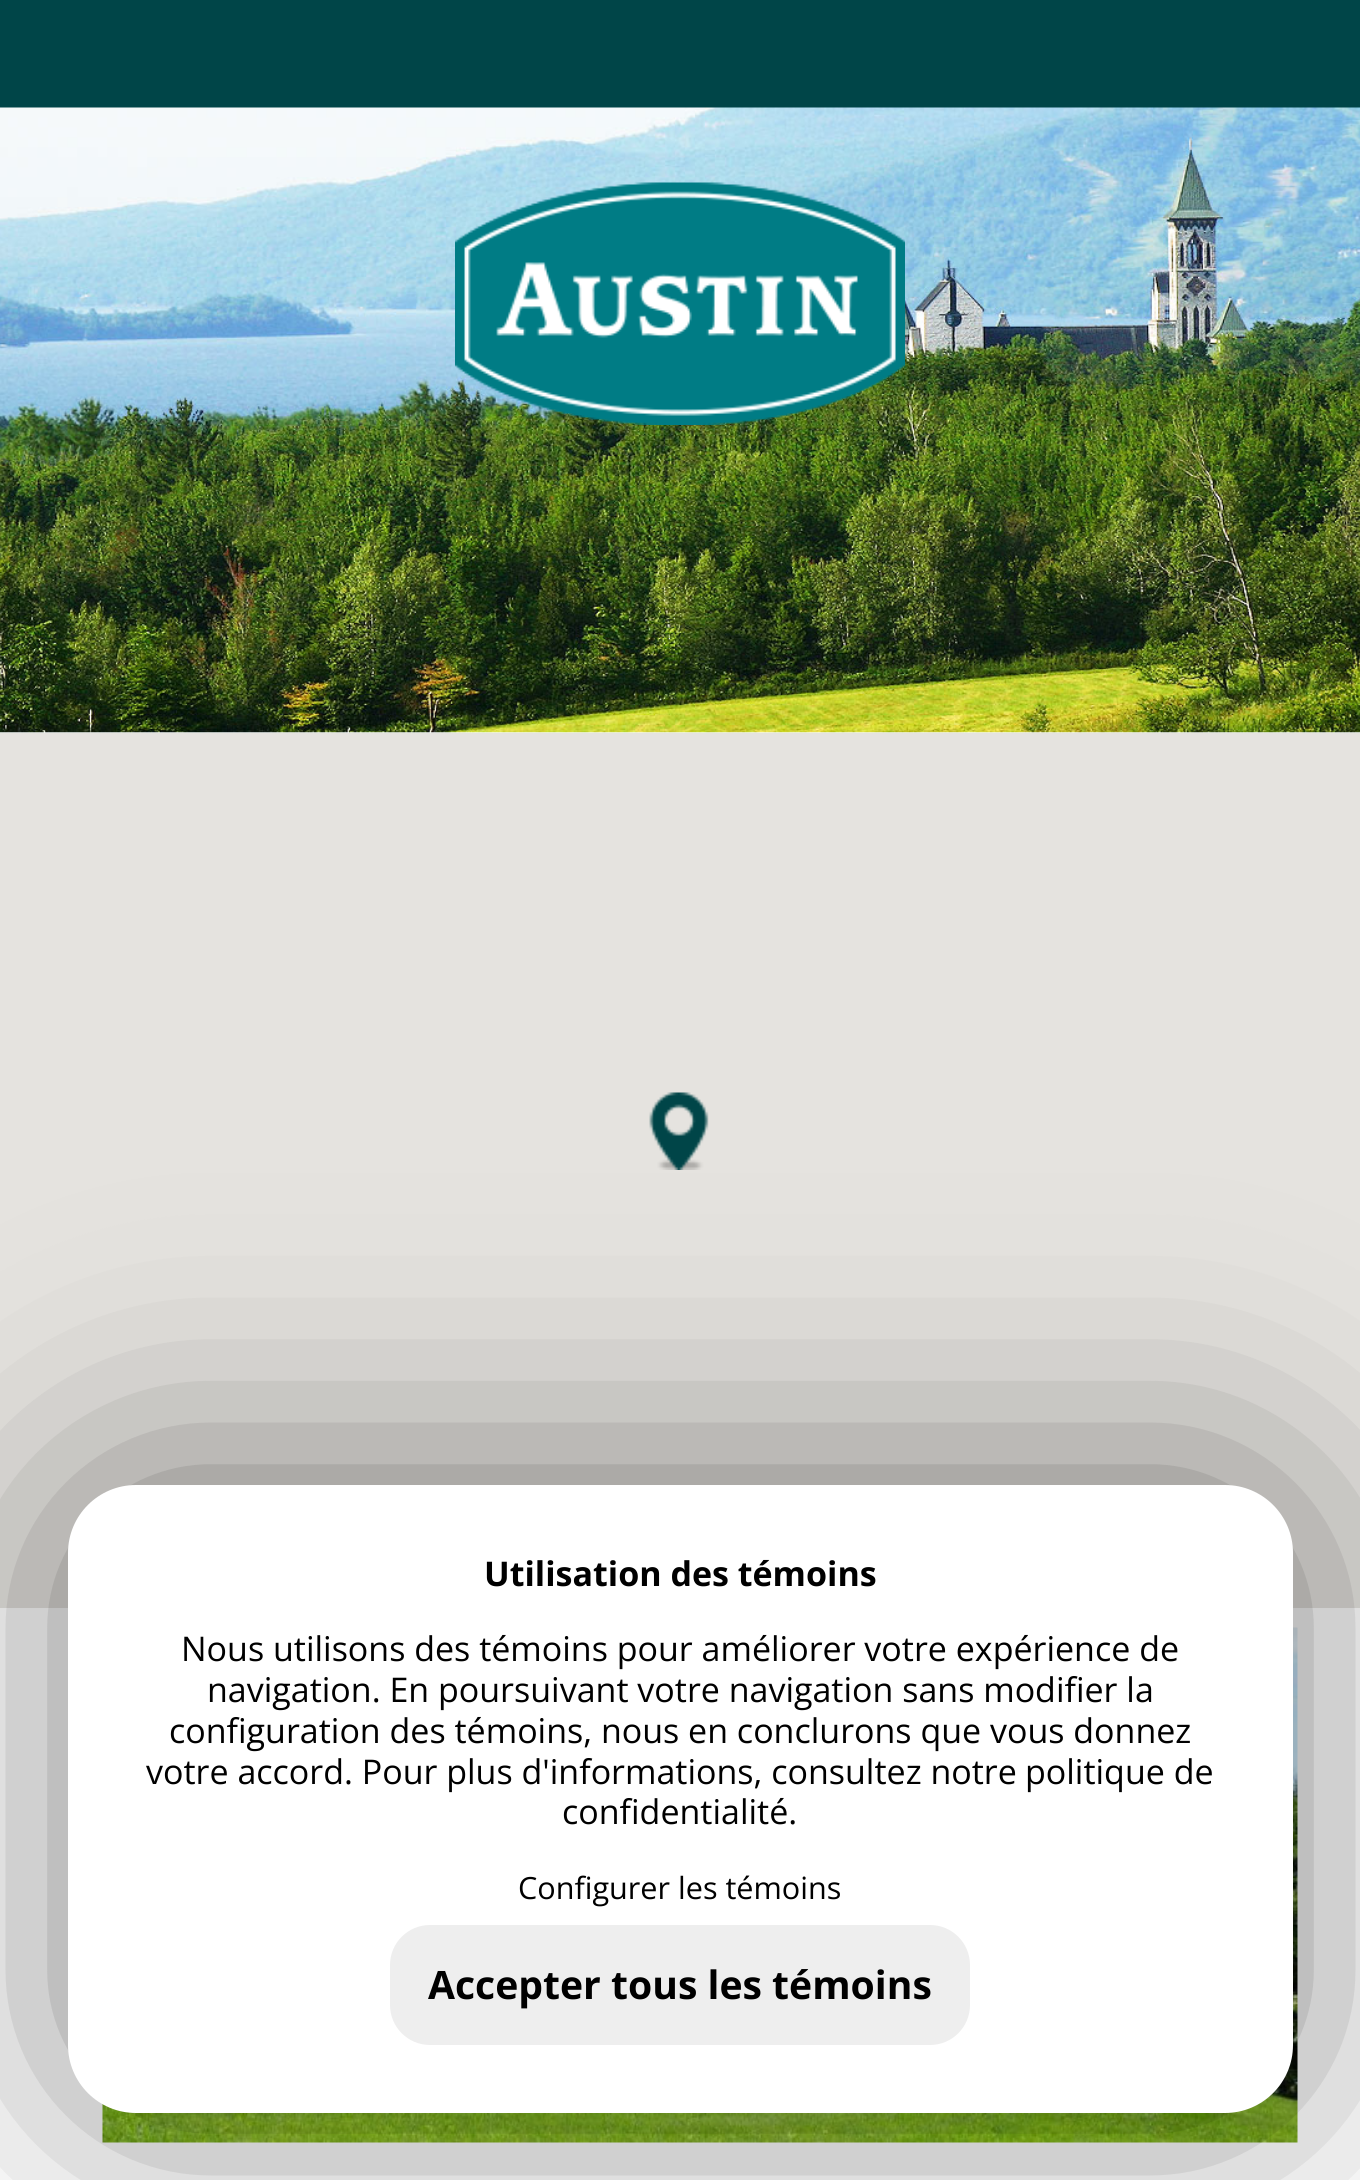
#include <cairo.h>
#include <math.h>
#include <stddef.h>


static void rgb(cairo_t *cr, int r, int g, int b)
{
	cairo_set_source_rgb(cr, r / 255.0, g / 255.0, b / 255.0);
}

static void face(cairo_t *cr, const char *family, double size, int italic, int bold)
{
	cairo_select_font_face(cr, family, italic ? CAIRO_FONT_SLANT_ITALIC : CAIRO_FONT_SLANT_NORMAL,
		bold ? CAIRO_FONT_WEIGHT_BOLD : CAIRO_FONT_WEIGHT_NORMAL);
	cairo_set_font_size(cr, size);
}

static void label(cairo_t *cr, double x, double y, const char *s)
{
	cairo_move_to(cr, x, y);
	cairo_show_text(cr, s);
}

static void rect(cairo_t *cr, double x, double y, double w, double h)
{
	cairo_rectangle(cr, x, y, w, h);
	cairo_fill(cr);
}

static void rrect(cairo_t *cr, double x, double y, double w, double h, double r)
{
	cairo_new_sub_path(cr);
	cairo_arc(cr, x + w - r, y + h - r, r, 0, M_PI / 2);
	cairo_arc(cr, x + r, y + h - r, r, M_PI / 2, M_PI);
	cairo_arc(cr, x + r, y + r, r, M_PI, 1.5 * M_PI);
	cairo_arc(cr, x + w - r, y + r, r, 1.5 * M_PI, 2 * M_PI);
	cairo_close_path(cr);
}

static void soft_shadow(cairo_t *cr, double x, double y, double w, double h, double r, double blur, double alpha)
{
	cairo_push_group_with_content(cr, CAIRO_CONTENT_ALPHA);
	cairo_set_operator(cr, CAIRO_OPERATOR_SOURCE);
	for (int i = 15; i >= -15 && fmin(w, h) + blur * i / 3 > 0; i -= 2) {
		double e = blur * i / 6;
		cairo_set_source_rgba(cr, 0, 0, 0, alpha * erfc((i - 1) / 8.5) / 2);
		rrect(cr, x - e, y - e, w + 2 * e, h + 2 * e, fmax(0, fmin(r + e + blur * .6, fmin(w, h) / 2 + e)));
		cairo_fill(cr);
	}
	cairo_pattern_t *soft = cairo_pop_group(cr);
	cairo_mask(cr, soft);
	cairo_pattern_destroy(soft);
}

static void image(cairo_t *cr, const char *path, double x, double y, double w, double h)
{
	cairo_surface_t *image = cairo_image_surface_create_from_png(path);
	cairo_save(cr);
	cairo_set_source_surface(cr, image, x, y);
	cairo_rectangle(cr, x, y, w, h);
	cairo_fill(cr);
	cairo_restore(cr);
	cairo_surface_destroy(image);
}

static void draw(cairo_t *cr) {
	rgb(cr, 255, 255, 255);
	cairo_paint(cr);
	rgb(cr, 0, 69, 72);
	rect(cr, 0, 0, 1360, 108);
	image(cr, "image0.png", 0, 107, 1360, 626);
	image(cr, "image1.png", 455, 182, 450, 243);
	image(cr, "image2.png", 0, 732, 1360, 1);
	rgb(cr, 229, 227, 223);
	rect(cr, 0, 733, 1360, 875);
	image(cr, "image3.png", 649, 1092, 60, 78);
	image(cr, "image4.png", 102, 1627, 1196, 516);
	rgb(cr, 0, 0, 0);
	soft_shadow(cr, 68, 1485, 1225, 628, 68, 125, 0.5);
	rgb(cr, 255, 255, 255);
	rrect(cr, 68, 1485, 1225, 628, 68);
	cairo_fill(cr);
	face(cr, "Open Sans", 34, 0, 1);
	rgb(cr, 0, 0, 0);
	label(cr, 484, 1586, "Utilisation des témoins");
	face(cr, "Open Sans", 34, 0, 0);
	label(cr, 181, 1661, "Nous utilisons des témoins pour améliorer votre expérience de");
	label(cr, 207, 1702, "navigation. En poursuivant votre navigation sans modifier la");
	label(cr, 169, 1743, "configuration des témoins, nous en conclurons que vous donnez");
	label(cr, 146, 1784, "votre accord. Pour plus d'informations, consultez notre");
	label(cr, 1025, 1784, "politique de");
	label(cr, 562, 1824, "confidentialité.");
	face(cr, "Open Sans", 30.6, 0, 0);
	label(cr, 518, 1899, "Configurer les témoins");
	rgb(cr, 238, 238, 238);
	rrect(cr, 390, 1925, 580, 120, 40);
	cairo_fill(cr);
	face(cr, "Open Sans", 39.1, 0, 1);
	rgb(cr, 0, 0, 0);
	label(cr, 428, 1999, "Accepter tous les témoins");
}

int main(void) {
	cairo_surface_t *surface = cairo_image_surface_create(CAIRO_FORMAT_RGB24, 1360, 2180);
	cairo_t *cr = cairo_create(surface);
	cairo_font_options_t *options = cairo_font_options_create();
	cairo_font_options_set_hint_metrics(options, CAIRO_HINT_METRICS_OFF);
	cairo_font_options_set_hint_style(options, CAIRO_HINT_STYLE_NONE);
	cairo_set_font_options(cr, options);
	cairo_set_miter_limit(cr, 4);
	draw(cr);
	cairo_surface_write_to_png(surface, "render.png");
	cairo_font_options_destroy(options);
	cairo_destroy(cr);
	cairo_surface_destroy(surface);
	return 0;
}
